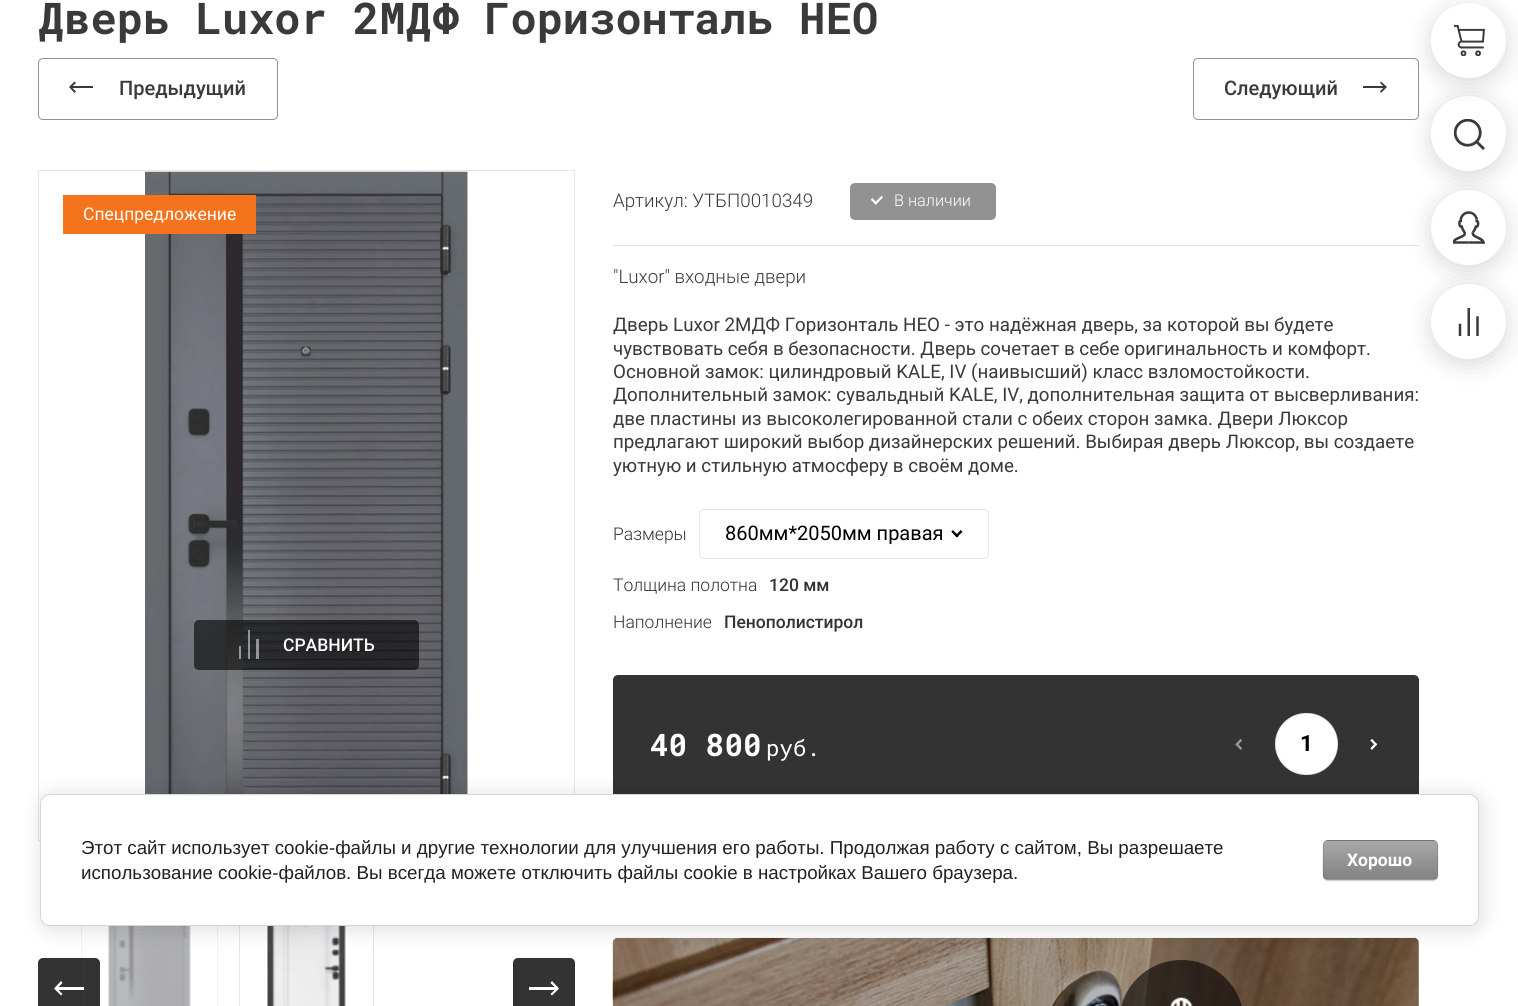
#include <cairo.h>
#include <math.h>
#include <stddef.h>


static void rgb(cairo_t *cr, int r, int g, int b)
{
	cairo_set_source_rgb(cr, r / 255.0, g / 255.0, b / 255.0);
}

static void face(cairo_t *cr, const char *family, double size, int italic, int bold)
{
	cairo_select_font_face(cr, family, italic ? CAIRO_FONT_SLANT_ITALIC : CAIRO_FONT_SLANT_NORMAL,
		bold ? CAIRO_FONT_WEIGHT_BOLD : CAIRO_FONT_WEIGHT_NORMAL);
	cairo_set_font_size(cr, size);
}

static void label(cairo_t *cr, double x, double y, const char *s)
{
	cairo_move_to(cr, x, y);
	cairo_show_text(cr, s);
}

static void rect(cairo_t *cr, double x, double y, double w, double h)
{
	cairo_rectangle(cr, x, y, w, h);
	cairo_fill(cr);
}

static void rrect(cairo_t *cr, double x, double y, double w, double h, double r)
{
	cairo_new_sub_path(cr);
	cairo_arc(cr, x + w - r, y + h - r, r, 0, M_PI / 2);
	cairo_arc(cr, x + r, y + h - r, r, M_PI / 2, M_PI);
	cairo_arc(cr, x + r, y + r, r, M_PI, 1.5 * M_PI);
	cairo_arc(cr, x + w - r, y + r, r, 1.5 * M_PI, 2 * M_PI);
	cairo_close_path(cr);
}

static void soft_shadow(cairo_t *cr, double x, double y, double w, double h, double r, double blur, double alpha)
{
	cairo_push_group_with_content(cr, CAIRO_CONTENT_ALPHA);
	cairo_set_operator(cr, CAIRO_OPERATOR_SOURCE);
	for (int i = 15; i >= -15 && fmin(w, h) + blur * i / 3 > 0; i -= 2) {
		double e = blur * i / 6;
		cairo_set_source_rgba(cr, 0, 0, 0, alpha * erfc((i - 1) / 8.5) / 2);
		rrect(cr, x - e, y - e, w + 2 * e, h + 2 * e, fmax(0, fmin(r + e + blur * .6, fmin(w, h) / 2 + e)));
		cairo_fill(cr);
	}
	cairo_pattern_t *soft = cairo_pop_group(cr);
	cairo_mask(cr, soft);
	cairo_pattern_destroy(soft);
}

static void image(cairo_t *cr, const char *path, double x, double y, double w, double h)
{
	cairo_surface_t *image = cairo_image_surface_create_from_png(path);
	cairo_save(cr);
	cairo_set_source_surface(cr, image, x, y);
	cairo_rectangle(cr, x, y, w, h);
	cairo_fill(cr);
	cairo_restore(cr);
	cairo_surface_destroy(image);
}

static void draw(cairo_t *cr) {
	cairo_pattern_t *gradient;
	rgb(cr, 255, 255, 255);
	cairo_paint(cr);
	face(cr, "Roboto Mono", 43.75, 0, 1);
	rgb(cr, 58, 58, 58);
	label(cr, 38, 34, "Дверь Luxor 2МДФ Горизонталь НЕО");
	rrect(cr, 38.5, 58.5, 239, 61, 4.5);
	rgb(cr, 146, 146, 146);
	cairo_set_line_width(cr, 1);
	cairo_stroke(cr);
	rgb(cr, 58, 58, 58);
	cairo_new_path(cr);
	cairo_move_to(cr, 74.5, 93);
	cairo_line_to(cr, 69, 87);
	cairo_line_to(cr, 74.5, 81.5);
	cairo_line_to(cr, 76, 83);
	cairo_line_to(cr, 71.5, 87);
	cairo_line_to(cr, 76, 91.5);
	cairo_close_path(cr);
	cairo_fill(cr);
	rect(cr, 70, 86, 23, 2);
	face(cr, "Roboto Medium", 20, 0, 0);
	label(cr, 119, 95, "Предыдущий");
	rrect(cr, 1193.5, 58.5, 225, 61, 4.5);
	rgb(cr, 146, 146, 146);
	cairo_stroke(cr);
	rgb(cr, 58, 58, 58);
	label(cr, 1224, 95, "Следующий");
	cairo_new_path(cr);
	cairo_move_to(cr, 1381, 93);
	cairo_line_to(cr, 1380, 91.5);
	cairo_line_to(cr, 1384, 87);
	cairo_line_to(cr, 1380, 83);
	cairo_line_to(cr, 1381, 81.5);
	cairo_line_to(cr, 1387, 87);
	cairo_close_path(cr);
	cairo_fill(cr);
	rect(cr, 1363, 86, 23, 2);
	cairo_rectangle(cr, 38.5, 170.5, 536, 670);
	rgb(cr, 230, 230, 230);
	cairo_stroke(cr);
	image(cr, "image0.png", 145, 171, 323, 623);
	rgb(cr, 244, 115, 28);
	rect(cr, 63, 195, 193, 39);
	face(cr, "Roboto", 17.5, 0, 0);
	rgb(cr, 255, 255, 255);
	label(cr, 83, 220, "Спецпредложение");
	cairo_rectangle(cr, 81.5, 879.5, 136, 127);
	rgb(cr, 242, 242, 242);
	cairo_stroke(cr);
	cairo_set_source_rgba(cr, 0, 0, 0, 0.8);
	rrect(cr, 38, 958, 62, 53, 5);
	cairo_fill(cr);
	rgb(cr, 255, 255, 255);
	cairo_new_path(cr);
	cairo_move_to(cr, 61, 995.5);
	cairo_line_to(cr, 54, 988.5);
	cairo_line_to(cr, 61, 981);
	cairo_line_to(cr, 62.5, 983);
	cairo_line_to(cr, 57, 988.5);
	cairo_line_to(cr, 62.5, 994);
	cairo_close_path(cr);
	cairo_fill(cr);
	rect(cr, 56, 987, 28, 3);
	rgb(cr, 51, 51, 51);
	rrect(cr, 513, 958, 62, 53, 5);
	cairo_fill(cr);
	rgb(cr, 255, 255, 255);
	cairo_new_path(cr);
	cairo_move_to(cr, 552, 995.5);
	cairo_line_to(cr, 550.5, 994);
	cairo_line_to(cr, 556, 988.5);
	cairo_line_to(cr, 550.5, 983);
	cairo_line_to(cr, 552, 981);
	cairo_line_to(cr, 559, 988.5);
	cairo_close_path(cr);
	cairo_fill(cr);
	rect(cr, 529, 987, 29, 3);
	cairo_set_source_rgba(cr, 0, 0, 0, 0.6);
	rrect(cr, 194, 620, 225, 50, 5);
	cairo_fill(cr);
	cairo_set_source_rgba(cr, 1, 1, 1, 0.5);
	rect(cr, 256, 639, 3, 20);
	rect(cr, 248, 630, 2, 29);
	rgb(cr, 149, 150, 150);
	rect(cr, 239, 646, 2, 13);
	face(cr, "Roboto Medium", 17.5, 0, 0);
	rgb(cr, 255, 255, 255);
	label(cr, 283, 651, "СРАВНИТЬ");
	image(cr, "image1.png", 108, 926, 83, 80);
	cairo_rectangle(cr, 239.5, 879.5, 134, 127);
	rgb(cr, 230, 230, 230);
	cairo_stroke(cr);
	image(cr, "image2.png", 267, 926, 79, 80);
	rect(cr, 613, 245, 806, 1);
	face(cr, "Roboto Light", 18.75, 0, 0);
	rgb(cr, 58, 58, 58);
	label(cr, 613, 207, "Артикул: УТБП0010349");
	rgb(cr, 146, 146, 146);
	rrect(cr, 850, 183, 146, 37, 5);
	cairo_fill(cr);
	image(cr, "image3.png", 870, 196, 13, 9);
	face(cr, "Roboto Light", 16.25, 0, 0);
	rgb(cr, 255, 255, 255);
	label(cr, 894, 206, "В наличии");
	face(cr, "Roboto Light", 18.75, 0, 0);
	rgb(cr, 58, 58, 58);
	label(cr, 613, 283, "\"Luxor\" входные двери");
	face(cr, "Roboto", 18.75, 0, 0);
	label(cr, 613, 331, "Дверь Luxor 2МДФ Горизонталь НЕО - это надёжная дверь, за которой вы будете");
	label(cr, 613, 355, "чувствовать себя в безопасности. Дверь сочетает в себе оригинальность и комфорт.");
	label(cr, 613, 378, "Основной замок: цилиндровый KALE, IV (наивысший) класс взломостойкости.");
	label(cr, 613, 401, "Дополнительный замок: сувальдный KALE, IV, дополнительная защита от высверливания:");
	label(cr, 613, 425, "две пластины из высоколегированной стали с обеих сторон замка. Двери Люксор");
	label(cr, 613, 448, "предлагают широкий выбор дизайнерских решений. Выбирая дверь Люксор, вы создаете");
	label(cr, 613, 472, "уютную и стильную атмосферу в своём доме.");
	face(cr, "Roboto Light", 17.5, 0, 0);
	rgb(cr, 51, 51, 51);
	label(cr, 613, 540, "Размеры");
	image(cr, "image4.png", 951, 530, 12, 8);
	rrect(cr, 699.5, 509.5, 289, 49, 4.5);
	rgb(cr, 230, 230, 230);
	cairo_stroke(cr);
	face(cr, "Roboto", 20, 0, 0);
	rgb(cr, 0, 0, 0);
	label(cr, 725, 540, "860мм*2050мм правая");
	face(cr, "Roboto Light", 17.5, 0, 0);
	rgb(cr, 51, 51, 51);
	label(cr, 613, 591, "Толщина полотна");
	face(cr, "Roboto Medium", 17.5, 0, 0);
	label(cr, 769, 591, "120 мм");
	face(cr, "Roboto Light", 17.5, 0, 0);
	label(cr, 613, 628, "Наполнение");
	face(cr, "Roboto Medium", 17.5, 0, 0);
	label(cr, 724, 628, "Пенополистирол");
	rrect(cr, 613, 675, 806, 225, 5);
	cairo_fill(cr);
	face(cr, "Roboto Mono", 31, 0, 1);
	rgb(cr, 255, 255, 255);
	label(cr, 650, 756, "40 800");
	face(cr, "Roboto Mono", 22.5, 0, 0);
	label(cr, 766, 756, "руб.");
	image(cr, "image5.png", 1235, 739, 7, 11);
	rrect(cr, 1275, 713, 63, 62, 31);
	cairo_fill(cr);
	rrect(cr, 1275.5, 713.5, 62, 61, 30.5);
	cairo_set_source_rgba(cr, 0, 0, 0, 0.1);
	cairo_stroke(cr);
	face(cr, "Roboto", 22.5, 0, 1);
	rgb(cr, 0, 0, 0);
	label(cr, 1300, 751, "1");
	image(cr, "image6.png", 1370, 739, 7, 11);
	image(cr, "image7.png", 612, 937, 807, 69);
	cairo_set_source_rgba(cr, 0, 0, 0, 0.3);
	rrect(cr, 613, 938, 806, 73, 5);
	cairo_fill(cr);
	cairo_set_source_rgba(cr, 0, 0, 0, 0.6);
	rrect(cr, 1119, 960, 125, 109, 62.5);
	cairo_fill(cr);
	image(cr, "image8.png", 1170, 997, 23, 9);
	rgb(cr, 0, 0, 0);
	soft_shadow(cr, 1431, 101, 75, 75, 37.5, 12.5, 0.15);
	rgb(cr, 255, 255, 255);
	cairo_arc(cr, 1468.5, 133.5, 37.5, 0, 2 * M_PI);
	cairo_fill(cr);
	image(cr, "image10.png", 1454, 119, 31, 31);
	rgb(cr, 0, 0, 0);
	soft_shadow(cr, 1431, 8, 75, 75, 37.5, 12.5, 0.15);
	rgb(cr, 255, 255, 255);
	cairo_arc(cr, 1468.5, 40.5, 37.5, 0, 2 * M_PI);
	cairo_fill(cr);
	image(cr, "image9.png", 1454, 25, 31, 31);
	rgb(cr, 0, 0, 0);
	soft_shadow(cr, 1431, 195, 75, 75, 37.5, 12.5, 0.15);
	rgb(cr, 255, 255, 255);
	cairo_arc(cr, 1468.5, 227.5, 37.5, 0, 2 * M_PI);
	cairo_fill(cr);
	image(cr, "image11.png", 1453, 211, 32, 33);
	rgb(cr, 0, 0, 0);
	soft_shadow(cr, 1431, 289, 75, 75, 37.5, 12.5, 0.15);
	rgb(cr, 255, 255, 255);
	cairo_arc(cr, 1468.5, 321.5, 37.5, 0, 2 * M_PI);
	cairo_fill(cr);
	image(cr, "image12.png", 1458, 308, 21, 28);
	rgb(cr, 0, 0, 0);
	soft_shadow(cr, 43, 796, 1438, 133, 10, 11, 0.14);
	rgb(cr, 255, 255, 255);
	rrect(cr, 40.5, 794.5, 1438, 131, 9.5);
	cairo_fill_preserve(cr);
	rgb(cr, 214, 214, 214);
	cairo_stroke(cr);
	face(cr, "Liberation Sans", 18.75, 0, 0);
	rgb(cr, 33, 33, 33);
	label(cr, 81, 854, "Этот сайт использует cookie-файлы и другие технологии для улучшения его работы. Продолжая работу с сайтом, Вы разрешаете");
	label(cr, 81, 879, "использование cookie-файлов. Вы всегда можете отключить файлы cookie в настройках Вашего браузера.");
	rgb(cr, 0, 0, 0);
	soft_shadow(cr, 1323, 841, 115, 40, 5, 0.5, 0.2);
	cairo_save(cr);
	rrect(cr, 1323, 840, 115, 40, 5);
	cairo_clip(cr);
	gradient = cairo_pattern_create_linear(1380, 804, 1380, 841);
	cairo_pattern_add_color_stop_rgba(gradient, 0, 0.659, 0.659, 0.659, 1);
	cairo_pattern_add_color_stop_rgba(gradient, 1, 0.51, 0.51, 0.51, 1);
	cairo_set_source(cr, gradient);
	cairo_pattern_destroy(gradient);
	rect(cr, 1323, 840, 115, 1);
	gradient = cairo_pattern_create_linear(1380, 841, 1380, 879);
	cairo_pattern_add_color_stop_rgba(gradient, 0, 0.659, 0.659, 0.659, 1);
	cairo_pattern_add_color_stop_rgba(gradient, 1, 0.51, 0.51, 0.51, 1);
	cairo_set_source(cr, gradient);
	cairo_pattern_destroy(gradient);
	rect(cr, 1323, 841, 115, 38);
	gradient = cairo_pattern_create_linear(1380, 879, 1380, 916);
	cairo_pattern_add_color_stop_rgba(gradient, 0, 0.659, 0.659, 0.659, 1);
	cairo_pattern_add_color_stop_rgba(gradient, 1, 0.51, 0.51, 0.51, 1);
	cairo_set_source(cr, gradient);
	cairo_pattern_destroy(gradient);
	rect(cr, 1323, 879, 115, 1);
	cairo_restore(cr);
	rrect(cr, 1323.5, 840.5, 114, 39, 4.5);
	cairo_set_source_rgba(cr, 0, 0, 0, 0.1);
	cairo_stroke(cr);
	face(cr, "Roboto", 17.5, 0, 1);
	rgb(cr, 255, 255, 255);
	label(cr, 1347, 866, "Хорошо");
}

int main(void) {
	cairo_surface_t *surface = cairo_image_surface_create(CAIRO_FORMAT_RGB24, 1518, 1006);
	cairo_t *cr = cairo_create(surface);
	cairo_font_options_t *options = cairo_font_options_create();
	cairo_font_options_set_hint_metrics(options, CAIRO_HINT_METRICS_OFF);
	cairo_font_options_set_hint_style(options, CAIRO_HINT_STYLE_NONE);
	cairo_set_font_options(cr, options);
	cairo_set_miter_limit(cr, 4);
	draw(cr);
	cairo_surface_write_to_png(surface, "render.png");
	cairo_font_options_destroy(options);
	cairo_destroy(cr);
	cairo_surface_destroy(surface);
	return 0;
}
